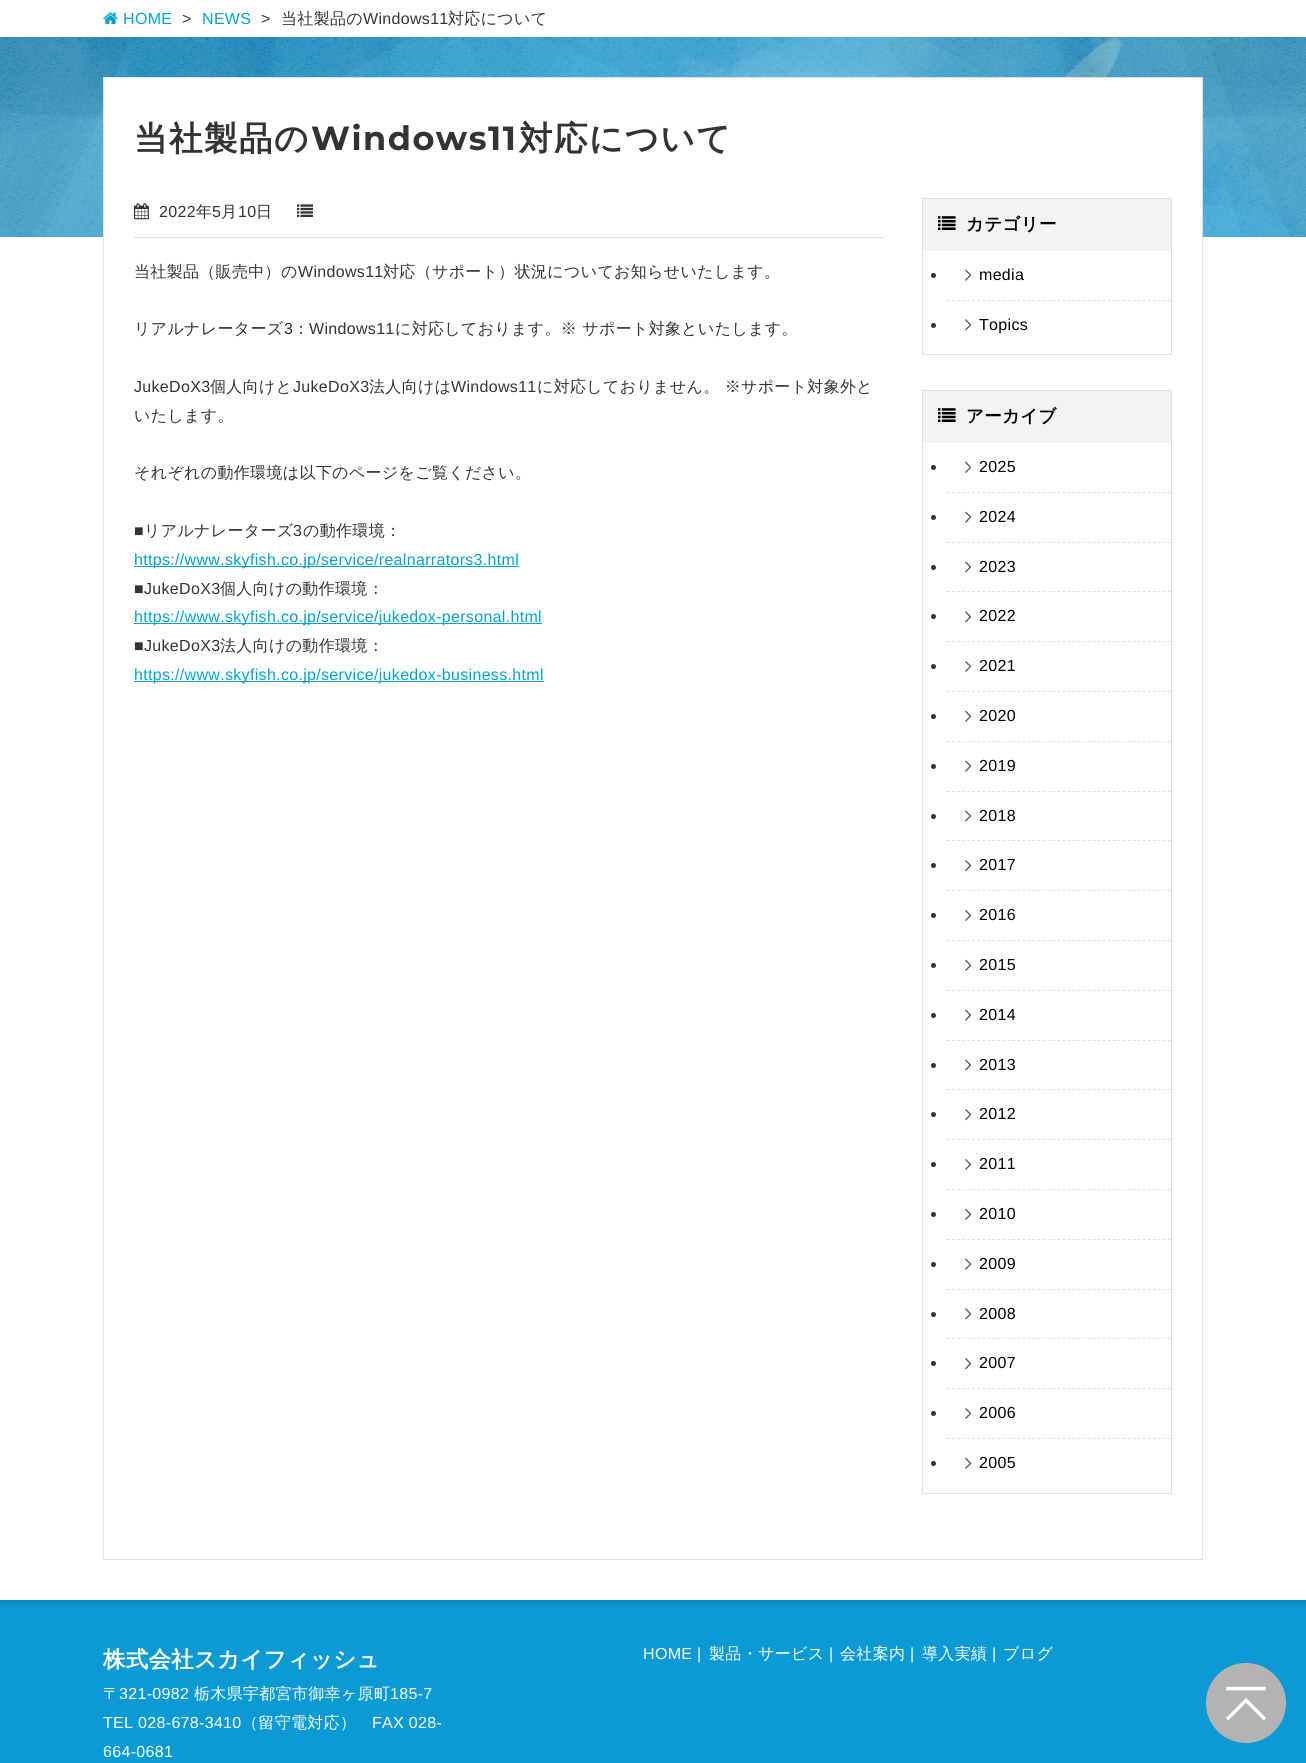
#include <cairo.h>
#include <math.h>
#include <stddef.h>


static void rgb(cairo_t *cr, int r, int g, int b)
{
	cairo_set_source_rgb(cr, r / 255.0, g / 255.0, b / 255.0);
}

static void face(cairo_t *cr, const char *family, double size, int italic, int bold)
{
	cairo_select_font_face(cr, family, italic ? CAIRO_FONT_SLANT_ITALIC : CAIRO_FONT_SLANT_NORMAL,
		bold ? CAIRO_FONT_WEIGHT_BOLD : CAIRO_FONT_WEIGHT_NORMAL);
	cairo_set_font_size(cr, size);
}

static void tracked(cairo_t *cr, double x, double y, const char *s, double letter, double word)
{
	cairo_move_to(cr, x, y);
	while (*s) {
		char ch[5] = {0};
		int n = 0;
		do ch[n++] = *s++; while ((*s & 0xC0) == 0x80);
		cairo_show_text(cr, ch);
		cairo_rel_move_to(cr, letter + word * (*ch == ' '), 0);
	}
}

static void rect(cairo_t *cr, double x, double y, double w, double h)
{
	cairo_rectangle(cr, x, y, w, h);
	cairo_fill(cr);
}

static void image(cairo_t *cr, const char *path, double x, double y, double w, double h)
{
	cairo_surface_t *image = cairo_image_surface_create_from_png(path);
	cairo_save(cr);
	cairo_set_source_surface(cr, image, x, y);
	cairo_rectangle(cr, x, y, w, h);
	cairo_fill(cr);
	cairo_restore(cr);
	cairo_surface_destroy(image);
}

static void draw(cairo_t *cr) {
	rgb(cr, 255, 255, 255);
	cairo_paint(cr);
	image(cr, "image0.png", 103, 12, 15, 12);
	face(cr, "Liberation Sans", 16, 0, 0);
	rgb(cr, 3, 162, 205);
	tracked(cr, 123, 24, "HOME", 0.32, 0);
	rgb(cr, 51, 51, 51);
	tracked(cr, 182, 24, ">", 0.32, 0);
	rgb(cr, 3, 162, 205);
	tracked(cr, 202, 24, "NEWS", 0.32, 0);
	rgb(cr, 51, 51, 51);
	tracked(cr, 261, 24, ">", 0.32, 0);
	face(cr, "WenQuanYi Zen Hei Medium", 16, 0, 0);
	tracked(cr, 281, 24, "当社製品の", 0.32, 0);
	face(cr, "Liberation Sans", 16, 0, 0);
	tracked(cr, 363, 24, "Windows11", 0.32, 0);
	face(cr, "WenQuanYi Zen Hei Medium", 16, 0, 0);
	tracked(cr, 448, 24, "対応について", 0.32, 0);
	image(cr, "image1.png", 0, 37, 1306, 200);
	rgb(cr, 255, 255, 255);
	rect(cr, 104, 78, 1098, 159);
	cairo_rectangle(cr, 103.5, 77.5, 1099, 1482);
	rgb(cr, 225, 225, 225);
	cairo_set_line_width(cr, 1);
	cairo_stroke(cr);
	face(cr, "WenQuanYi Zen Hei", 33.5, 0, 1);
	rgb(cr, 51, 51, 51);
	tracked(cr, 134, 150, "当社製品の", 1.5, 0);
	face(cr, "Montserrat", 33.5, 0, 1);
	tracked(cr, 311, 150, "Windows11", 1.5, 0);
	face(cr, "WenQuanYi Zen Hei", 33.5, 0, 1);
	tracked(cr, 519, 150, "対応について", 1.5, 0);
	rgb(cr, 221, 221, 221);
	rect(cr, 134, 237, 750, 1);
	image(cr, "image2.png", 134, 203, 15, 17);
	face(cr, "Liberation Sans", 16, 0, 0);
	rgb(cr, 51, 51, 51);
	tracked(cr, 159, 217, "2022", 0.32, 0);
	face(cr, "WenQuanYi Zen Hei Medium", 16, 0, 0);
	tracked(cr, 196, 217, "年", 0.32, 0);
	face(cr, "Liberation Sans", 16, 0, 0);
	tracked(cr, 212, 217, "5", 0.32, 0);
	face(cr, "WenQuanYi Zen Hei Medium", 16, 0, 0);
	tracked(cr, 221, 217, "月", 0.32, 0);
	face(cr, "Liberation Sans", 16, 0, 0);
	tracked(cr, 238, 217, "10", 0.32, 0);
	face(cr, "WenQuanYi Zen Hei Medium", 16, 0, 0);
	tracked(cr, 256, 217, "日", 0.32, 0);
	image(cr, "image3.png", 297, 204, 16, 13);
	tracked(cr, 134, 277, "当社製品（販売中）の", 0.32, 0);
	face(cr, "Liberation Sans", 16, 0, 0);
	tracked(cr, 298, 277, "Windows11", 0.32, 0);
	face(cr, "WenQuanYi Zen Hei Medium", 16, 0, 0);
	tracked(cr, 383, 277, "対応（サポート）状況についてお知らせいたします。", 0.32, 0);
	tracked(cr, 134, 334, "リアルナレーターズ", 0.32, 0);
	face(cr, "Liberation Sans", 16, 0, 0);
	tracked(cr, 284, 334, "3", 0.32, 0);
	face(cr, "WenQuanYi Zen Hei Medium", 16, 0, 0);
	tracked(cr, 293, 334, "：", 0.32, 0);
	face(cr, "Liberation Sans", 16, 0, 0);
	tracked(cr, 309, 334, "Windows11", 0.32, 0);
	face(cr, "WenQuanYi Zen Hei Medium", 16, 0, 0);
	tracked(cr, 395, 334, "に対応しております。※ サポート対象といたします。", 0.32, 0);
	face(cr, "Liberation Sans", 16, 0, 0);
	tracked(cr, 134, 392, "JukeDoX3", 0.32, 0);
	face(cr, "WenQuanYi Zen Hei Medium", 16, 0, 0);
	tracked(cr, 210, 392, "個人向けと", 0.32, 0);
	face(cr, "Liberation Sans", 16, 0, 0);
	tracked(cr, 293, 392, "JukeDoX3", 0.32, 0);
	face(cr, "WenQuanYi Zen Hei Medium", 16, 0, 0);
	tracked(cr, 369, 392, "法人向けは", 0.32, 0);
	face(cr, "Liberation Sans", 16, 0, 0);
	tracked(cr, 451, 392, "Windows11", 0.32, 0);
	face(cr, "WenQuanYi Zen Hei Medium", 16, 0, 0);
	tracked(cr, 537, 392, "に対応しておりません。 ※サポート対象外と", 0.32, 0);
	tracked(cr, 134, 421, "いたします。", 0.32, 0);
	tracked(cr, 134, 478, "それぞれの動作環境は以下のページをご覧ください。", 0.32, 0);
	face(cr, "Liberation Sans", 16, 0, 0);
	tracked(cr, 134, 536, "■", 0.32, 0);
	face(cr, "WenQuanYi Zen Hei Medium", 16, 0, 0);
	tracked(cr, 144, 536, "リアルナレーターズ", 0.32, 0);
	face(cr, "Liberation Sans", 16, 0, 0);
	tracked(cr, 293, 536, "3", 0.32, 0);
	face(cr, "WenQuanYi Zen Hei Medium", 16, 0, 0);
	tracked(cr, 303, 536, "の動作環境：", 0.32, 0);
	rgb(cr, 3, 162, 205);
	rect(cr, 134, 566, 385, 1);
	face(cr, "Liberation Sans", 16, 0, 0);
	tracked(cr, 134, 565, "https://www.skyfish.co.jp/service/realnarrators3.html", 0.32, 0);
	rgb(cr, 51, 51, 51);
	tracked(cr, 134, 594, "■JukeDoX3", 0.32, 0);
	face(cr, "WenQuanYi Zen Hei Medium", 16, 0, 0);
	tracked(cr, 220, 594, "個人向けの動作環境：", 0.32, 0);
	rgb(cr, 3, 162, 205);
	rect(cr, 134, 623, 408, 1);
	face(cr, "Liberation Sans", 16, 0, 0);
	tracked(cr, 134, 622, "https://www.skyfish.co.jp/service/jukedox-personal.html", 0.32, 0);
	rgb(cr, 51, 51, 51);
	tracked(cr, 134, 651, "■JukeDoX3", 0.32, 0);
	face(cr, "WenQuanYi Zen Hei Medium", 16, 0, 0);
	tracked(cr, 220, 651, "法人向けの動作環境：", 0.32, 0);
	rgb(cr, 3, 162, 205);
	rect(cr, 134, 681, 410, 1);
	face(cr, "Liberation Sans", 16, 0, 0);
	tracked(cr, 134, 680, "https://www.skyfish.co.jp/service/jukedox-business.html", 0.32, 0);
	cairo_rectangle(cr, 922.5, 198.5, 249, 156);
	rgb(cr, 225, 225, 225);
	cairo_stroke(cr);
	rgb(cr, 243, 243, 243);
	rect(cr, 923, 199, 248, 52);
	image(cr, "image4.png", 938, 216, 18, 14);
	face(cr, "WenQuanYi Zen Hei", 17.5, 0, 1);
	rgb(cr, 0, 0, 0);
	tracked(cr, 966, 230, "カテゴリー", 0.32, 0);
	cairo_new_path(cr);
	cairo_move_to(cr, 947, 300.5);
	cairo_line_to(cr, 1171, 300.5);
	rgb(cr, 225, 225, 225);
	cairo_set_dash(cr, (double[]){3, 2.02}, 2, 0);
	cairo_stroke(cr);
	rgb(cr, 51, 51, 51);
	cairo_arc(cr, 933.5, 275.5, 2.5, 0, 2 * M_PI);
	cairo_fill(cr);
	rgb(cr, 100, 100, 100);
	cairo_new_path(cr);
	cairo_move_to(cr, 966, 269.5);
	cairo_line_to(cr, 971.5, 275);
	cairo_line_to(cr, 966, 281);
	cairo_line_to(cr, 960.5, 275);
	cairo_close_path(cr);
	cairo_fill(cr);
	rgb(cr, 255, 255, 255);
	cairo_new_path(cr);
	cairo_move_to(cr, 964, 269.5);
	cairo_line_to(cr, 969.5, 275);
	cairo_line_to(cr, 964, 281);
	cairo_line_to(cr, 958.5, 275);
	cairo_close_path(cr);
	cairo_fill(cr);
	face(cr, "Liberation Sans", 16, 0, 0);
	rgb(cr, 0, 0, 0);
	tracked(cr, 979, 280, "media", 0.32, 0);
	rgb(cr, 51, 51, 51);
	cairo_new_path(cr);
	cairo_arc(cr, 933.5, 325.5, 2.5, 0, 2 * M_PI);
	cairo_fill(cr);
	rgb(cr, 100, 100, 100);
	cairo_new_path(cr);
	cairo_move_to(cr, 966, 319);
	cairo_line_to(cr, 971.5, 325);
	cairo_line_to(cr, 966, 330.5);
	cairo_line_to(cr, 960.5, 325);
	cairo_close_path(cr);
	cairo_fill(cr);
	rgb(cr, 255, 255, 255);
	cairo_new_path(cr);
	cairo_move_to(cr, 964, 319);
	cairo_line_to(cr, 969.5, 325);
	cairo_line_to(cr, 964, 330.5);
	cairo_line_to(cr, 958.5, 325);
	cairo_close_path(cr);
	cairo_fill(cr);
	rgb(cr, 0, 0, 0);
	tracked(cr, 979, 330, "Topics", 0.32, 0);
	cairo_rectangle(cr, 922.5, 390.5, 249, 1103);
	rgb(cr, 225, 225, 225);
	cairo_set_dash(cr, NULL, 0, 0);
	cairo_stroke(cr);
	rgb(cr, 243, 243, 243);
	rect(cr, 923, 391, 248, 52);
	image(cr, "image4.png", 938, 408, 18, 14);
	face(cr, "WenQuanYi Zen Hei", 17.5, 0, 1);
	rgb(cr, 0, 0, 0);
	tracked(cr, 966, 422, "アーカイブ", 0.32, 0);
	cairo_new_path(cr);
	cairo_move_to(cr, 947, 492.5);
	cairo_line_to(cr, 1171, 492.5);
	rgb(cr, 225, 225, 225);
	cairo_set_dash(cr, (double[]){3, 2.02}, 2, 0);
	cairo_stroke(cr);
	rgb(cr, 51, 51, 51);
	cairo_arc(cr, 933.5, 467.5, 2.5, 0, 2 * M_PI);
	cairo_fill(cr);
	rgb(cr, 100, 100, 100);
	cairo_new_path(cr);
	cairo_move_to(cr, 966, 461.5);
	cairo_line_to(cr, 971.5, 467.5);
	cairo_line_to(cr, 966, 473);
	cairo_line_to(cr, 960.5, 467.5);
	cairo_close_path(cr);
	cairo_fill(cr);
	rgb(cr, 255, 255, 255);
	cairo_new_path(cr);
	cairo_move_to(cr, 964, 461.5);
	cairo_line_to(cr, 969.5, 467.5);
	cairo_line_to(cr, 964, 473);
	cairo_line_to(cr, 958.5, 467.5);
	cairo_close_path(cr);
	cairo_fill(cr);
	face(cr, "Liberation Sans", 16, 0, 0);
	rgb(cr, 0, 0, 0);
	tracked(cr, 979, 472, "2025", 0.32, 0);
	cairo_new_path(cr);
	cairo_move_to(cr, 947, 542.5);
	cairo_line_to(cr, 1171, 542.5);
	rgb(cr, 225, 225, 225);
	cairo_stroke(cr);
	rgb(cr, 51, 51, 51);
	cairo_arc(cr, 933.5, 517.5, 2.5, 0, 2 * M_PI);
	cairo_fill(cr);
	rgb(cr, 100, 100, 100);
	cairo_new_path(cr);
	cairo_move_to(cr, 966, 511.5);
	cairo_line_to(cr, 971.5, 517);
	cairo_line_to(cr, 966, 523);
	cairo_line_to(cr, 960.5, 517);
	cairo_close_path(cr);
	cairo_fill(cr);
	rgb(cr, 255, 255, 255);
	cairo_new_path(cr);
	cairo_move_to(cr, 964, 511.5);
	cairo_line_to(cr, 969.5, 517);
	cairo_line_to(cr, 964, 523);
	cairo_line_to(cr, 958.5, 517);
	cairo_close_path(cr);
	cairo_fill(cr);
	rgb(cr, 0, 0, 0);
	tracked(cr, 979, 522, "2024", 0.32, 0);
	cairo_new_path(cr);
	cairo_move_to(cr, 947, 591.5);
	cairo_line_to(cr, 1171, 591.5);
	rgb(cr, 225, 225, 225);
	cairo_stroke(cr);
	rgb(cr, 51, 51, 51);
	cairo_arc(cr, 933.5, 567.5, 2.5, 0, 2 * M_PI);
	cairo_fill(cr);
	rgb(cr, 100, 100, 100);
	cairo_new_path(cr);
	cairo_move_to(cr, 966, 561.5);
	cairo_line_to(cr, 971.5, 567);
	cairo_line_to(cr, 966, 572.5);
	cairo_line_to(cr, 960.5, 567);
	cairo_close_path(cr);
	cairo_fill(cr);
	rgb(cr, 255, 255, 255);
	cairo_new_path(cr);
	cairo_move_to(cr, 964, 561.5);
	cairo_line_to(cr, 969.5, 567);
	cairo_line_to(cr, 964, 572.5);
	cairo_line_to(cr, 958.5, 567);
	cairo_close_path(cr);
	cairo_fill(cr);
	rgb(cr, 0, 0, 0);
	tracked(cr, 979, 572, "2023", 0.32, 0);
	cairo_new_path(cr);
	cairo_move_to(cr, 947, 641.5);
	cairo_line_to(cr, 1171, 641.5);
	rgb(cr, 225, 225, 225);
	cairo_stroke(cr);
	rgb(cr, 51, 51, 51);
	cairo_arc(cr, 933.5, 616.5, 2.5, 0, 2 * M_PI);
	cairo_fill(cr);
	rgb(cr, 100, 100, 100);
	cairo_new_path(cr);
	cairo_move_to(cr, 966, 611);
	cairo_line_to(cr, 971.5, 617);
	cairo_line_to(cr, 966, 622.5);
	cairo_line_to(cr, 960.5, 617);
	cairo_close_path(cr);
	cairo_fill(cr);
	rgb(cr, 255, 255, 255);
	cairo_new_path(cr);
	cairo_move_to(cr, 964, 611);
	cairo_line_to(cr, 969.5, 617);
	cairo_line_to(cr, 964, 622.5);
	cairo_line_to(cr, 958.5, 617);
	cairo_close_path(cr);
	cairo_fill(cr);
	rgb(cr, 0, 0, 0);
	tracked(cr, 979, 621, "2022", 0.32, 0);
	cairo_new_path(cr);
	cairo_move_to(cr, 947, 691.5);
	cairo_line_to(cr, 1171, 691.5);
	rgb(cr, 225, 225, 225);
	cairo_stroke(cr);
	rgb(cr, 51, 51, 51);
	cairo_arc(cr, 933.5, 666.5, 2.5, 0, 2 * M_PI);
	cairo_fill(cr);
	rgb(cr, 100, 100, 100);
	cairo_new_path(cr);
	cairo_move_to(cr, 966, 661);
	cairo_line_to(cr, 971.5, 666.5);
	cairo_line_to(cr, 966, 672);
	cairo_line_to(cr, 960.5, 666.5);
	cairo_close_path(cr);
	cairo_fill(cr);
	rgb(cr, 255, 255, 255);
	cairo_new_path(cr);
	cairo_move_to(cr, 964, 661);
	cairo_line_to(cr, 969.5, 666.5);
	cairo_line_to(cr, 964, 672);
	cairo_line_to(cr, 958.5, 666.5);
	cairo_close_path(cr);
	cairo_fill(cr);
	rgb(cr, 0, 0, 0);
	tracked(cr, 979, 671, "2021", 0.32, 0);
	cairo_new_path(cr);
	cairo_move_to(cr, 947, 741.5);
	cairo_line_to(cr, 1171, 741.5);
	rgb(cr, 225, 225, 225);
	cairo_stroke(cr);
	rgb(cr, 51, 51, 51);
	cairo_arc(cr, 933.5, 716.5, 2.5, 0, 2 * M_PI);
	cairo_fill(cr);
	rgb(cr, 100, 100, 100);
	cairo_new_path(cr);
	cairo_move_to(cr, 966, 710.5);
	cairo_line_to(cr, 971.5, 716.5);
	cairo_line_to(cr, 966, 722);
	cairo_line_to(cr, 960.5, 716.5);
	cairo_close_path(cr);
	cairo_fill(cr);
	rgb(cr, 255, 255, 255);
	cairo_new_path(cr);
	cairo_move_to(cr, 964, 710.5);
	cairo_line_to(cr, 969.5, 716.5);
	cairo_line_to(cr, 964, 722);
	cairo_line_to(cr, 958.5, 716.5);
	cairo_close_path(cr);
	cairo_fill(cr);
	rgb(cr, 0, 0, 0);
	tracked(cr, 979, 721, "2020", 0.32, 0);
	cairo_new_path(cr);
	cairo_move_to(cr, 947, 791.5);
	cairo_line_to(cr, 1171, 791.5);
	rgb(cr, 225, 225, 225);
	cairo_stroke(cr);
	rgb(cr, 51, 51, 51);
	cairo_arc(cr, 933.5, 766.5, 2.5, 0, 2 * M_PI);
	cairo_fill(cr);
	rgb(cr, 100, 100, 100);
	cairo_new_path(cr);
	cairo_move_to(cr, 966, 760.5);
	cairo_line_to(cr, 971.5, 766);
	cairo_line_to(cr, 966, 772);
	cairo_line_to(cr, 960.5, 766);
	cairo_close_path(cr);
	cairo_fill(cr);
	rgb(cr, 255, 255, 255);
	cairo_new_path(cr);
	cairo_move_to(cr, 964, 760.5);
	cairo_line_to(cr, 969.5, 766);
	cairo_line_to(cr, 964, 772);
	cairo_line_to(cr, 958.5, 766);
	cairo_close_path(cr);
	cairo_fill(cr);
	rgb(cr, 0, 0, 0);
	tracked(cr, 979, 771, "2019", 0.32, 0);
	cairo_new_path(cr);
	cairo_move_to(cr, 947, 840.5);
	cairo_line_to(cr, 1171, 840.5);
	rgb(cr, 225, 225, 225);
	cairo_stroke(cr);
	rgb(cr, 51, 51, 51);
	cairo_arc(cr, 933.5, 816.5, 2.5, 0, 2 * M_PI);
	cairo_fill(cr);
	rgb(cr, 100, 100, 100);
	cairo_new_path(cr);
	cairo_move_to(cr, 966, 810.5);
	cairo_line_to(cr, 971.5, 816);
	cairo_line_to(cr, 966, 821.5);
	cairo_line_to(cr, 960.5, 816);
	cairo_close_path(cr);
	cairo_fill(cr);
	rgb(cr, 255, 255, 255);
	cairo_new_path(cr);
	cairo_move_to(cr, 964, 810.5);
	cairo_line_to(cr, 969.5, 816);
	cairo_line_to(cr, 964, 821.5);
	cairo_line_to(cr, 958.5, 816);
	cairo_close_path(cr);
	cairo_fill(cr);
	rgb(cr, 0, 0, 0);
	tracked(cr, 979, 821, "2018", 0.32, 0);
	cairo_new_path(cr);
	cairo_move_to(cr, 947, 890.5);
	cairo_line_to(cr, 1171, 890.5);
	rgb(cr, 225, 225, 225);
	cairo_stroke(cr);
	rgb(cr, 51, 51, 51);
	cairo_arc(cr, 933.5, 865.5, 2.5, 0, 2 * M_PI);
	cairo_fill(cr);
	rgb(cr, 100, 100, 100);
	cairo_new_path(cr);
	cairo_move_to(cr, 966, 860);
	cairo_line_to(cr, 971.5, 865.5);
	cairo_line_to(cr, 966, 871.5);
	cairo_line_to(cr, 960.5, 865.5);
	cairo_close_path(cr);
	cairo_fill(cr);
	rgb(cr, 255, 255, 255);
	cairo_new_path(cr);
	cairo_move_to(cr, 964, 860);
	cairo_line_to(cr, 969.5, 865.5);
	cairo_line_to(cr, 964, 871.5);
	cairo_line_to(cr, 958.5, 865.5);
	cairo_close_path(cr);
	cairo_fill(cr);
	rgb(cr, 0, 0, 0);
	tracked(cr, 979, 870, "2017", 0.32, 0);
	cairo_new_path(cr);
	cairo_move_to(cr, 947, 940.5);
	cairo_line_to(cr, 1171, 940.5);
	rgb(cr, 225, 225, 225);
	cairo_stroke(cr);
	rgb(cr, 51, 51, 51);
	cairo_arc(cr, 933.5, 915.5, 2.5, 0, 2 * M_PI);
	cairo_fill(cr);
	rgb(cr, 100, 100, 100);
	cairo_new_path(cr);
	cairo_move_to(cr, 966, 910);
	cairo_line_to(cr, 971.5, 915.5);
	cairo_line_to(cr, 966, 921);
	cairo_line_to(cr, 960.5, 915.5);
	cairo_close_path(cr);
	cairo_fill(cr);
	rgb(cr, 255, 255, 255);
	cairo_new_path(cr);
	cairo_move_to(cr, 964, 910);
	cairo_line_to(cr, 969.5, 915.5);
	cairo_line_to(cr, 964, 921);
	cairo_line_to(cr, 958.5, 915.5);
	cairo_close_path(cr);
	cairo_fill(cr);
	rgb(cr, 0, 0, 0);
	tracked(cr, 979, 920, "2016", 0.32, 0);
	cairo_new_path(cr);
	cairo_move_to(cr, 947, 990.5);
	cairo_line_to(cr, 1171, 990.5);
	rgb(cr, 225, 225, 225);
	cairo_stroke(cr);
	rgb(cr, 51, 51, 51);
	cairo_arc(cr, 933.5, 965.5, 2.5, 0, 2 * M_PI);
	cairo_fill(cr);
	rgb(cr, 100, 100, 100);
	cairo_new_path(cr);
	cairo_move_to(cr, 966, 959.5);
	cairo_line_to(cr, 971.5, 965.5);
	cairo_line_to(cr, 966, 971);
	cairo_line_to(cr, 960.5, 965.5);
	cairo_close_path(cr);
	cairo_fill(cr);
	rgb(cr, 255, 255, 255);
	cairo_new_path(cr);
	cairo_move_to(cr, 964, 959.5);
	cairo_line_to(cr, 969.5, 965.5);
	cairo_line_to(cr, 964, 971);
	cairo_line_to(cr, 958.5, 965.5);
	cairo_close_path(cr);
	cairo_fill(cr);
	rgb(cr, 0, 0, 0);
	tracked(cr, 979, 970, "2015", 0.32, 0);
	cairo_new_path(cr);
	cairo_move_to(cr, 947, 1040.5);
	cairo_line_to(cr, 1171, 1040.5);
	rgb(cr, 225, 225, 225);
	cairo_stroke(cr);
	rgb(cr, 51, 51, 51);
	cairo_arc(cr, 933.5, 1015.5, 2.5, 0, 2 * M_PI);
	cairo_fill(cr);
	rgb(cr, 100, 100, 100);
	cairo_new_path(cr);
	cairo_move_to(cr, 966, 1009.5);
	cairo_line_to(cr, 971.5, 1015);
	cairo_line_to(cr, 966, 1021);
	cairo_line_to(cr, 960.5, 1015);
	cairo_close_path(cr);
	cairo_fill(cr);
	rgb(cr, 255, 255, 255);
	cairo_new_path(cr);
	cairo_move_to(cr, 964, 1009.5);
	cairo_line_to(cr, 969.5, 1015);
	cairo_line_to(cr, 964, 1021);
	cairo_line_to(cr, 958.5, 1015);
	cairo_close_path(cr);
	cairo_fill(cr);
	rgb(cr, 0, 0, 0);
	tracked(cr, 979, 1020, "2014", 0.32, 0);
	cairo_new_path(cr);
	cairo_move_to(cr, 947, 1089.5);
	cairo_line_to(cr, 1171, 1089.5);
	rgb(cr, 225, 225, 225);
	cairo_stroke(cr);
	rgb(cr, 51, 51, 51);
	cairo_arc(cr, 933.5, 1065.5, 2.5, 0, 2 * M_PI);
	cairo_fill(cr);
	rgb(cr, 100, 100, 100);
	cairo_new_path(cr);
	cairo_move_to(cr, 966, 1059.5);
	cairo_line_to(cr, 971.5, 1065);
	cairo_line_to(cr, 966, 1070.5);
	cairo_line_to(cr, 960.5, 1065);
	cairo_close_path(cr);
	cairo_fill(cr);
	rgb(cr, 255, 255, 255);
	cairo_new_path(cr);
	cairo_move_to(cr, 964, 1059.5);
	cairo_line_to(cr, 969.5, 1065);
	cairo_line_to(cr, 964, 1070.5);
	cairo_line_to(cr, 958.5, 1065);
	cairo_close_path(cr);
	cairo_fill(cr);
	rgb(cr, 0, 0, 0);
	tracked(cr, 979, 1070, "2013", 0.32, 0);
	cairo_new_path(cr);
	cairo_move_to(cr, 947, 1139.5);
	cairo_line_to(cr, 1171, 1139.5);
	rgb(cr, 225, 225, 225);
	cairo_stroke(cr);
	rgb(cr, 51, 51, 51);
	cairo_arc(cr, 933.5, 1114.5, 2.5, 0, 2 * M_PI);
	cairo_fill(cr);
	rgb(cr, 100, 100, 100);
	cairo_new_path(cr);
	cairo_move_to(cr, 966, 1109);
	cairo_line_to(cr, 971.5, 1114.5);
	cairo_line_to(cr, 966, 1120.5);
	cairo_line_to(cr, 960.5, 1114.5);
	cairo_close_path(cr);
	cairo_fill(cr);
	rgb(cr, 255, 255, 255);
	cairo_new_path(cr);
	cairo_move_to(cr, 964, 1109);
	cairo_line_to(cr, 969.5, 1114.5);
	cairo_line_to(cr, 964, 1120.5);
	cairo_line_to(cr, 958.5, 1114.5);
	cairo_close_path(cr);
	cairo_fill(cr);
	rgb(cr, 0, 0, 0);
	tracked(cr, 979, 1119, "2012", 0.32, 0);
	cairo_new_path(cr);
	cairo_move_to(cr, 947, 1189.5);
	cairo_line_to(cr, 1171, 1189.5);
	rgb(cr, 225, 225, 225);
	cairo_stroke(cr);
	rgb(cr, 51, 51, 51);
	cairo_arc(cr, 933.5, 1164.5, 2.5, 0, 2 * M_PI);
	cairo_fill(cr);
	rgb(cr, 100, 100, 100);
	cairo_new_path(cr);
	cairo_move_to(cr, 966, 1159);
	cairo_line_to(cr, 971.5, 1164.5);
	cairo_line_to(cr, 966, 1170);
	cairo_line_to(cr, 960.5, 1164.5);
	cairo_close_path(cr);
	cairo_fill(cr);
	rgb(cr, 255, 255, 255);
	cairo_new_path(cr);
	cairo_move_to(cr, 964, 1159);
	cairo_line_to(cr, 969.5, 1164.5);
	cairo_line_to(cr, 964, 1170);
	cairo_line_to(cr, 958.5, 1164.5);
	cairo_close_path(cr);
	cairo_fill(cr);
	rgb(cr, 0, 0, 0);
	tracked(cr, 979, 1169, "2011", 0.32, 0);
	cairo_new_path(cr);
	cairo_move_to(cr, 947, 1239.5);
	cairo_line_to(cr, 1171, 1239.5);
	rgb(cr, 225, 225, 225);
	cairo_stroke(cr);
	rgb(cr, 51, 51, 51);
	cairo_arc(cr, 933.5, 1214.5, 2.5, 0, 2 * M_PI);
	cairo_fill(cr);
	rgb(cr, 100, 100, 100);
	cairo_new_path(cr);
	cairo_move_to(cr, 966, 1208.5);
	cairo_line_to(cr, 971.5, 1214.5);
	cairo_line_to(cr, 966, 1220);
	cairo_line_to(cr, 960.5, 1214.5);
	cairo_close_path(cr);
	cairo_fill(cr);
	rgb(cr, 255, 255, 255);
	cairo_new_path(cr);
	cairo_move_to(cr, 964, 1208.5);
	cairo_line_to(cr, 969.5, 1214.5);
	cairo_line_to(cr, 964, 1220);
	cairo_line_to(cr, 958.5, 1214.5);
	cairo_close_path(cr);
	cairo_fill(cr);
	rgb(cr, 0, 0, 0);
	tracked(cr, 979, 1219, "2010", 0.32, 0);
	cairo_new_path(cr);
	cairo_move_to(cr, 947, 1289.5);
	cairo_line_to(cr, 1171, 1289.5);
	rgb(cr, 225, 225, 225);
	cairo_stroke(cr);
	rgb(cr, 51, 51, 51);
	cairo_arc(cr, 933.5, 1264.5, 2.5, 0, 2 * M_PI);
	cairo_fill(cr);
	rgb(cr, 100, 100, 100);
	cairo_new_path(cr);
	cairo_move_to(cr, 966, 1258.5);
	cairo_line_to(cr, 971.5, 1264);
	cairo_line_to(cr, 966, 1270);
	cairo_line_to(cr, 960.5, 1264);
	cairo_close_path(cr);
	cairo_fill(cr);
	rgb(cr, 255, 255, 255);
	cairo_new_path(cr);
	cairo_move_to(cr, 964, 1258.5);
	cairo_line_to(cr, 969.5, 1264);
	cairo_line_to(cr, 964, 1270);
	cairo_line_to(cr, 958.5, 1264);
	cairo_close_path(cr);
	cairo_fill(cr);
	rgb(cr, 0, 0, 0);
	tracked(cr, 979, 1269, "2009", 0.32, 0);
	cairo_new_path(cr);
	cairo_move_to(cr, 947, 1338.5);
	cairo_line_to(cr, 1171, 1338.5);
	rgb(cr, 225, 225, 225);
	cairo_stroke(cr);
	rgb(cr, 51, 51, 51);
	cairo_arc(cr, 933.5, 1314.5, 2.5, 0, 2 * M_PI);
	cairo_fill(cr);
	rgb(cr, 100, 100, 100);
	cairo_new_path(cr);
	cairo_move_to(cr, 966, 1308);
	cairo_line_to(cr, 971.5, 1314);
	cairo_line_to(cr, 966, 1319.5);
	cairo_line_to(cr, 960.5, 1314);
	cairo_close_path(cr);
	cairo_fill(cr);
	rgb(cr, 255, 255, 255);
	cairo_new_path(cr);
	cairo_move_to(cr, 964, 1308);
	cairo_line_to(cr, 969.5, 1314);
	cairo_line_to(cr, 964, 1319.5);
	cairo_line_to(cr, 958.5, 1314);
	cairo_close_path(cr);
	cairo_fill(cr);
	rgb(cr, 0, 0, 0);
	tracked(cr, 979, 1319, "2008", 0.32, 0);
	cairo_new_path(cr);
	cairo_move_to(cr, 947, 1388.5);
	cairo_line_to(cr, 1171, 1388.5);
	rgb(cr, 225, 225, 225);
	cairo_stroke(cr);
	rgb(cr, 51, 51, 51);
	cairo_arc(cr, 933.5, 1363.5, 2.5, 0, 2 * M_PI);
	cairo_fill(cr);
	rgb(cr, 100, 100, 100);
	cairo_new_path(cr);
	cairo_move_to(cr, 966, 1358);
	cairo_line_to(cr, 971.5, 1363.5);
	cairo_line_to(cr, 966, 1369.5);
	cairo_line_to(cr, 960.5, 1363.5);
	cairo_close_path(cr);
	cairo_fill(cr);
	rgb(cr, 255, 255, 255);
	cairo_new_path(cr);
	cairo_move_to(cr, 964, 1358);
	cairo_line_to(cr, 969.5, 1363.5);
	cairo_line_to(cr, 964, 1369.5);
	cairo_line_to(cr, 958.5, 1363.5);
	cairo_close_path(cr);
	cairo_fill(cr);
	rgb(cr, 0, 0, 0);
	tracked(cr, 979, 1368, "2007", 0.32, 0);
	cairo_new_path(cr);
	cairo_move_to(cr, 947, 1438.5);
	cairo_line_to(cr, 1171, 1438.5);
	rgb(cr, 225, 225, 225);
	cairo_stroke(cr);
	rgb(cr, 51, 51, 51);
	cairo_arc(cr, 933.5, 1413.5, 2.5, 0, 2 * M_PI);
	cairo_fill(cr);
	rgb(cr, 100, 100, 100);
	cairo_new_path(cr);
	cairo_move_to(cr, 966, 1408);
	cairo_line_to(cr, 971.5, 1413.5);
	cairo_line_to(cr, 966, 1419);
	cairo_line_to(cr, 960.5, 1413.5);
	cairo_close_path(cr);
	cairo_fill(cr);
	rgb(cr, 255, 255, 255);
	cairo_new_path(cr);
	cairo_move_to(cr, 964, 1408);
	cairo_line_to(cr, 969.5, 1413.5);
	cairo_line_to(cr, 964, 1419);
	cairo_line_to(cr, 958.5, 1413.5);
	cairo_close_path(cr);
	cairo_fill(cr);
	rgb(cr, 0, 0, 0);
	tracked(cr, 979, 1418, "2006", 0.32, 0);
	rgb(cr, 51, 51, 51);
	cairo_new_path(cr);
	cairo_arc(cr, 933.5, 1463.5, 2.5, 0, 2 * M_PI);
	cairo_fill(cr);
	rgb(cr, 100, 100, 100);
	cairo_new_path(cr);
	cairo_move_to(cr, 966, 1457.5);
	cairo_line_to(cr, 971.5, 1463.5);
	cairo_line_to(cr, 966, 1469);
	cairo_line_to(cr, 960.5, 1463.5);
	cairo_close_path(cr);
	cairo_fill(cr);
	rgb(cr, 255, 255, 255);
	cairo_new_path(cr);
	cairo_move_to(cr, 964, 1457.5);
	cairo_line_to(cr, 969.5, 1463.5);
	cairo_line_to(cr, 964, 1469);
	cairo_line_to(cr, 958.5, 1463.5);
	cairo_close_path(cr);
	cairo_fill(cr);
	rgb(cr, 0, 0, 0);
	tracked(cr, 979, 1468, "2005", 0.32, 0);
	rgb(cr, 12, 154, 213);
	rect(cr, 0, 1606, 1306, 157);
	image(cr, "image5.png", 0, 1600, 1306, 6);
	face(cr, "WenQuanYi Zen Hei", 22.4, 0, 1);
	rgb(cr, 255, 255, 255);
	tracked(cr, 103, 1667, "株式会社スカイフィッシュ", 0.32, 0);
	face(cr, "WenQuanYi Zen Hei Medium", 16, 0, 0);
	tracked(cr, 103, 1699, "〒", 0.32, 0);
	face(cr, "Liberation Sans", 16, 0, 0);
	tracked(cr, 119, 1699, "321-0982", 0.32, 0);
	face(cr, "WenQuanYi Zen Hei Medium", 16, 0, 0);
	tracked(cr, 194, 1699, "栃木県宇都宮市御幸ヶ原町", 0.32, 0);
	face(cr, "Liberation Sans", 16, 0, 0);
	tracked(cr, 390, 1699, "185-7", 0.32, 0);
	tracked(cr, 103, 1728, "TEL 028-678-3410", 0.32, 0);
	face(cr, "WenQuanYi Zen Hei Medium", 16, 0, 0);
	tracked(cr, 242, 1728, "（留守電対応）", 0.32, 0);
	face(cr, "Liberation Sans", 16, 0, 0);
	tracked(cr, 372, 1728, "FAX 028-", 0.32, 0);
	tracked(cr, 103, 1757, "664-0681", 0.32, 0);
	tracked(cr, 643, 1659, "HOME |", 0.32, 0);
	face(cr, "WenQuanYi Zen Hei Medium", 16, 0, 0);
	tracked(cr, 709, 1659, "製品・サービス", 0.32, 0);
	face(cr, "Liberation Sans", 16, 0, 0);
	tracked(cr, 829, 1659, "|", 0.32, 0);
	face(cr, "WenQuanYi Zen Hei Medium", 16, 0, 0);
	tracked(cr, 840, 1659, "会社案内", 0.32, 0);
	face(cr, "Liberation Sans", 16, 0, 0);
	tracked(cr, 910, 1659, "|", 0.32, 0);
	face(cr, "WenQuanYi Zen Hei Medium", 16, 0, 0);
	tracked(cr, 922, 1659, "導入実績", 0.32, 0);
	face(cr, "Liberation Sans", 16, 0, 0);
	tracked(cr, 992, 1659, "|", 0.32, 0);
	face(cr, "WenQuanYi Zen Hei Medium", 16, 0, 0);
	tracked(cr, 1003, 1659, "ブログ", 0.32, 0);
	image(cr, "image6.png", 1206, 1663, 80, 80);
}

int main(void) {
	cairo_surface_t *surface = cairo_image_surface_create(CAIRO_FORMAT_RGB24, 1306, 1763);
	cairo_t *cr = cairo_create(surface);
	cairo_font_options_t *options = cairo_font_options_create();
	cairo_font_options_set_hint_metrics(options, CAIRO_HINT_METRICS_OFF);
	cairo_font_options_set_hint_style(options, CAIRO_HINT_STYLE_NONE);
	cairo_set_font_options(cr, options);
	cairo_set_miter_limit(cr, 4);
	draw(cr);
	cairo_surface_write_to_png(surface, "render.png");
	cairo_font_options_destroy(options);
	cairo_destroy(cr);
	cairo_surface_destroy(surface);
	return 0;
}
